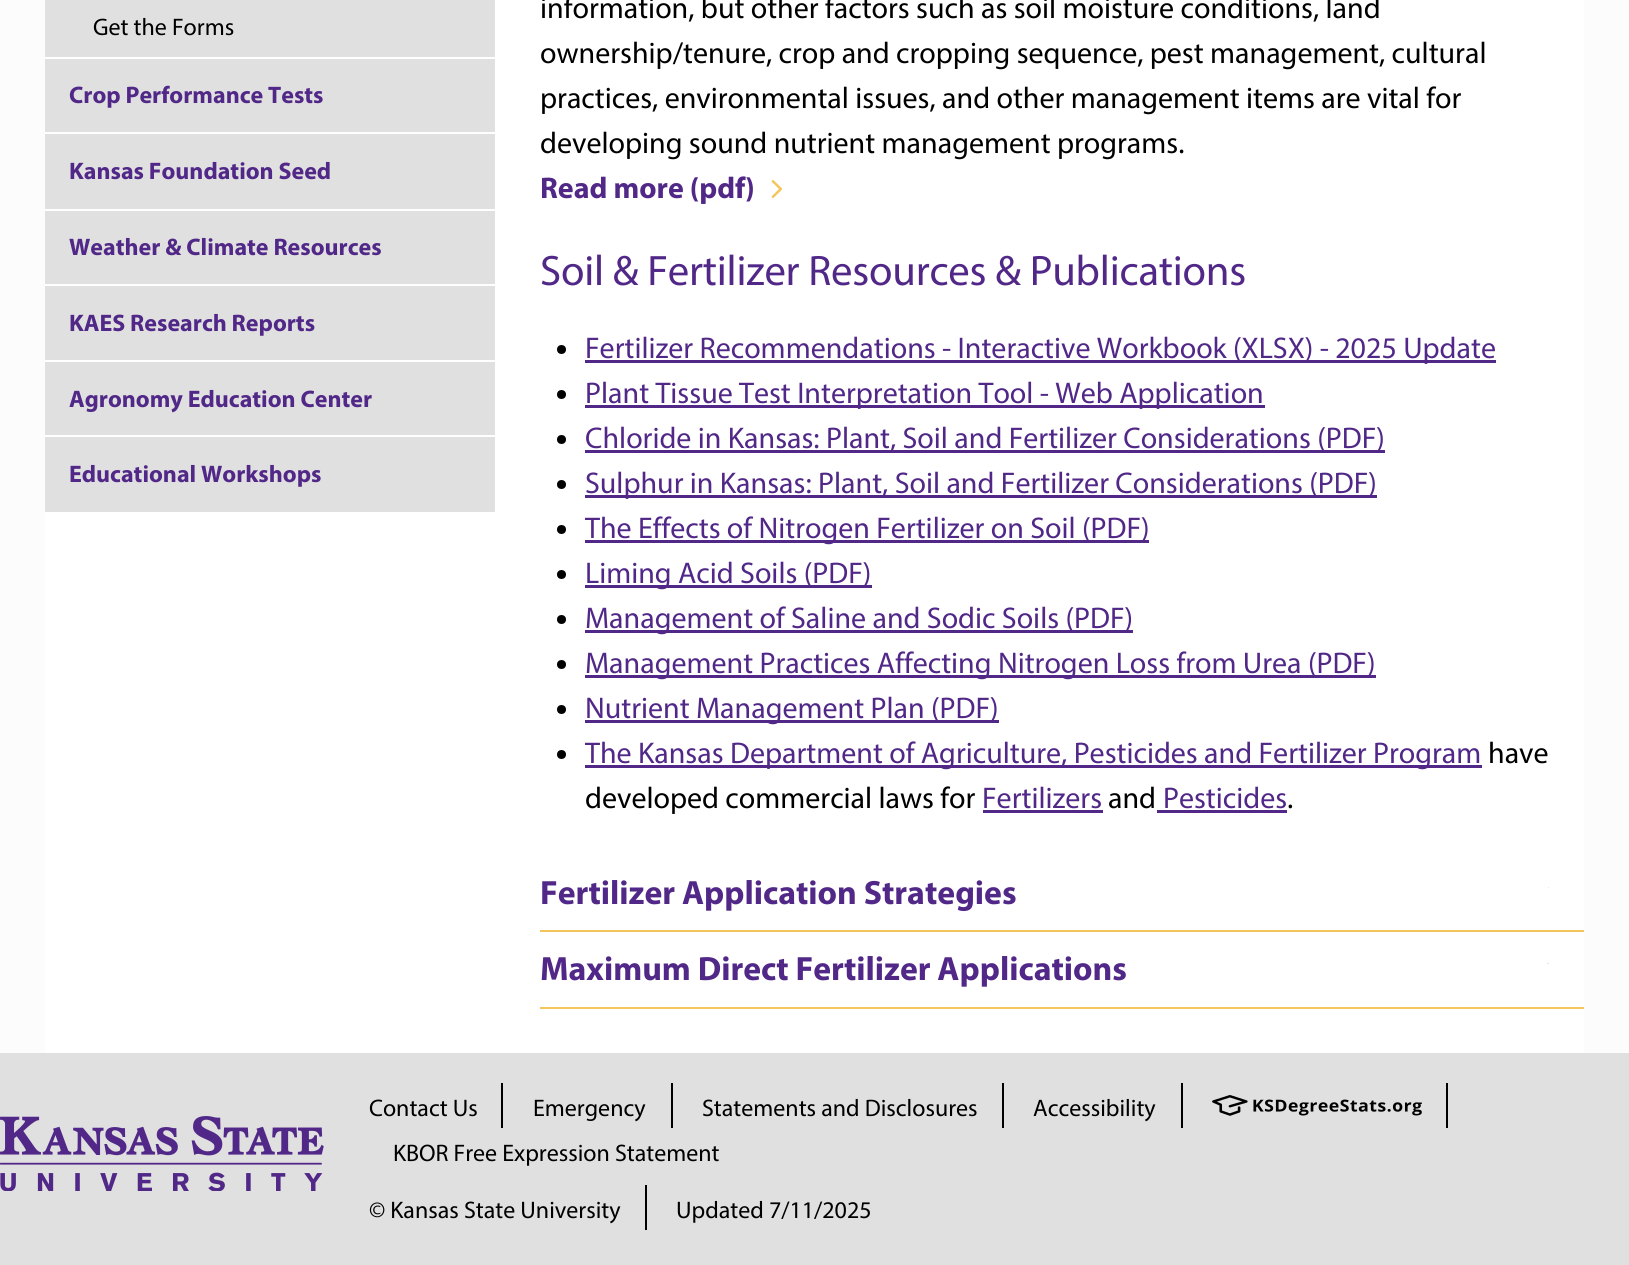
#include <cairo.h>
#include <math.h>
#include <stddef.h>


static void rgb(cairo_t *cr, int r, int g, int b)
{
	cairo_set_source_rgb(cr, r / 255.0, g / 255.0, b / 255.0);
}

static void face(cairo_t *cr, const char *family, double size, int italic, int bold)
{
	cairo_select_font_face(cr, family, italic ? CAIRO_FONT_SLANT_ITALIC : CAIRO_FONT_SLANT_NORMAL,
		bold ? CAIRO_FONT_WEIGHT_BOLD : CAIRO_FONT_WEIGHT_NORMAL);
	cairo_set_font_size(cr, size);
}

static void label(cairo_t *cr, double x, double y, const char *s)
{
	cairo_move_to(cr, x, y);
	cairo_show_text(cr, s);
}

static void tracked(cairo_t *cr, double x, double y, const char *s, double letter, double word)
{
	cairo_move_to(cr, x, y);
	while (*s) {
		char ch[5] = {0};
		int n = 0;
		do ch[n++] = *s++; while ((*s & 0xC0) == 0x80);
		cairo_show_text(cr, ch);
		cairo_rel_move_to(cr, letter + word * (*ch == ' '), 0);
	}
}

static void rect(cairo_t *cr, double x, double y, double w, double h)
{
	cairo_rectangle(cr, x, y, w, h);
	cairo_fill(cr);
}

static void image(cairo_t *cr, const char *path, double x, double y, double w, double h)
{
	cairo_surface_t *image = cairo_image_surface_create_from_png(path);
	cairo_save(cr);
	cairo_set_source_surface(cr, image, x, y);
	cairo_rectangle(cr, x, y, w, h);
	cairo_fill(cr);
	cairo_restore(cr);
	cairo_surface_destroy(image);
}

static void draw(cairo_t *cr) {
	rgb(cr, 224, 224, 224);
	cairo_paint(cr);
	rgb(cr, 252, 252, 252);
	rect(cr, 0, 0, 1629, 1053);
	rgb(cr, 255, 255, 255);
	rect(cr, 45, 0, 1539, 1053);
	rgb(cr, 224, 224, 224);
	rect(cr, 45, 0, 450, 512);
	rgb(cr, 255, 255, 255);
	rect(cr, 45, 57, 450, 2);
	face(cr, "Myriad", 24, 0, 0);
	rgb(cr, 0, 0, 0);
	label(cr, 93, 35, "Get the Forms");
	rgb(cr, 255, 255, 255);
	rect(cr, 45, 132, 450, 2);
	face(cr, "Myriad", 24, 0, 1);
	rgb(cr, 81, 40, 136);
	label(cr, 69, 103, "Crop Performance Tests");
	rgb(cr, 255, 255, 255);
	rect(cr, 45, 209, 450, 2);
	rgb(cr, 81, 40, 136);
	label(cr, 69, 179, "Kansas Foundation Seed");
	rgb(cr, 255, 255, 255);
	rect(cr, 45, 284, 450, 2);
	rgb(cr, 81, 40, 136);
	label(cr, 69, 255, "Weather & Climate Resources");
	rgb(cr, 255, 255, 255);
	rect(cr, 45, 360, 450, 2);
	rgb(cr, 81, 40, 136);
	label(cr, 69, 331, "KAES Research Reports");
	rgb(cr, 255, 255, 255);
	rect(cr, 45, 435, 450, 2);
	rgb(cr, 81, 40, 136);
	label(cr, 69, 407, "Agronomy Education Center");
	label(cr, 69, 482, "Educational Workshops");
	face(cr, "Myriad", 30, 0, 0);
	rgb(cr, 0, 0, 0);
	label(cr, 540, 18, "information, but other factors such as soil moisture conditions, land");
	label(cr, 540, 63, "ownership/tenure, crop and cropping sequence, pest management, cultural");
	label(cr, 540, 108, "practices, environmental issues, and other management items are vital for");
	label(cr, 540, 153, "developing sound nutrient management programs.");
	face(cr, "Myriad", 30, 0, 1);
	rgb(cr, 81, 40, 136);
	label(cr, 540, 198, "Read more (pdf)");
	image(cr, "image0.png", 771, 180, 11, 18);
	face(cr, "Myriad", 42.75, 0, 0);
	tracked(cr, 540, 285, "Soil & Fertilizer Resources & Publications", -0.2, 0);
	rgb(cr, 0, 0, 0);
	cairo_new_path(cr);
	cairo_arc(cr, 561.5, 349.5, 4.5, 0, 2 * M_PI);
	cairo_fill(cr);
	rgb(cr, 81, 40, 136);
	rect(cr, 585, 360, 911, 3);
	face(cr, "Myriad", 30, 0, 0);
	label(cr, 585, 358, "Fertilizer Recommendations - Interactive Workbook (XLSX) - 2025 Update");
	rgb(cr, 0, 0, 0);
	cairo_new_path(cr);
	cairo_arc(cr, 561.5, 394.5, 4.5, 0, 2 * M_PI);
	cairo_fill(cr);
	rgb(cr, 81, 40, 136);
	rect(cr, 585, 405, 680, 3);
	label(cr, 585, 403, "Plant Tissue Test Interpretation Tool - Web Application");
	rgb(cr, 0, 0, 0);
	cairo_new_path(cr);
	cairo_arc(cr, 561.5, 439.5, 4.5, 0, 2 * M_PI);
	cairo_fill(cr);
	rgb(cr, 81, 40, 136);
	rect(cr, 585, 450, 800, 3);
	label(cr, 585, 448, "Chloride in Kansas: Plant, Soil and Fertilizer Considerations (PDF)");
	rgb(cr, 0, 0, 0);
	cairo_new_path(cr);
	cairo_arc(cr, 561.5, 484.5, 4.5, 0, 2 * M_PI);
	cairo_fill(cr);
	rgb(cr, 81, 40, 136);
	rect(cr, 585, 495, 792, 3);
	label(cr, 585, 493, "Sulphur in Kansas: Plant, Soil and Fertilizer Considerations (PDF)");
	rgb(cr, 0, 0, 0);
	cairo_new_path(cr);
	cairo_arc(cr, 561.5, 529.5, 4.5, 0, 2 * M_PI);
	cairo_fill(cr);
	rgb(cr, 81, 40, 136);
	rect(cr, 585, 540, 564, 3);
	label(cr, 585, 538, "The Effects of Nitrogen Fertilizer on Soil (PDF)");
	rgb(cr, 0, 0, 0);
	cairo_new_path(cr);
	cairo_arc(cr, 561.5, 574.5, 4.5, 0, 2 * M_PI);
	cairo_fill(cr);
	rgb(cr, 81, 40, 136);
	rect(cr, 585, 585, 287, 3);
	label(cr, 585, 583, "Liming Acid Soils (PDF)");
	rgb(cr, 0, 0, 0);
	cairo_new_path(cr);
	cairo_arc(cr, 561.5, 619.5, 4.5, 0, 2 * M_PI);
	cairo_fill(cr);
	rgb(cr, 81, 40, 136);
	rect(cr, 585, 630, 548, 3);
	label(cr, 585, 628, "Management of Saline and Sodic Soils (PDF)");
	rgb(cr, 0, 0, 0);
	cairo_new_path(cr);
	cairo_arc(cr, 561.5, 664.5, 4.5, 0, 2 * M_PI);
	cairo_fill(cr);
	rgb(cr, 81, 40, 136);
	rect(cr, 585, 675, 791, 3);
	label(cr, 585, 673, "Management Practices Affecting Nitrogen Loss from Urea (PDF)");
	rgb(cr, 0, 0, 0);
	cairo_new_path(cr);
	cairo_arc(cr, 561.5, 709.5, 4.5, 0, 2 * M_PI);
	cairo_fill(cr);
	rgb(cr, 81, 40, 136);
	rect(cr, 585, 720, 414, 3);
	label(cr, 585, 718, "Nutrient Management Plan (PDF)");
	rgb(cr, 0, 0, 0);
	cairo_new_path(cr);
	cairo_arc(cr, 561.5, 754.5, 4.5, 0, 2 * M_PI);
	cairo_fill(cr);
	rgb(cr, 81, 40, 136);
	rect(cr, 585, 765, 897, 3);
	label(cr, 585, 763, "The Kansas Department of Agriculture, Pesticides and Fertilizer Program");
	rgb(cr, 0, 0, 0);
	label(cr, 1488, 763, "have");
	label(cr, 585, 808, "developed commercial laws for");
	rgb(cr, 81, 40, 136);
	label(cr, 982, 808, "Fertilizers");
	rect(cr, 983, 810, 120, 3);
	rgb(cr, 0, 0, 0);
	label(cr, 1108, 808, "and");
	rgb(cr, 81, 40, 136);
	label(cr, 1163, 808, "Pesticides");
	rect(cr, 1157, 810, 130, 3);
	rgb(cr, 0, 0, 0);
	label(cr, 1287, 808, ".");
	rgb(cr, 244, 197, 92);
	rect(cr, 540, 930, 1044, 2);
	face(cr, "Myriad", 33.75, 0, 1);
	rgb(cr, 81, 40, 136);
	label(cr, 540, 904, "Fertilizer Application Strategies");
	rgb(cr, 233, 230, 237);
	rect(cr, 1548, 887, 1, 1);
	rgb(cr, 244, 197, 92);
	rect(cr, 540, 1007, 1044, 2);
	rgb(cr, 81, 40, 136);
	label(cr, 540, 980, "Maximum Direct Fertilizer Applications");
	image(cr, "image1.png", 1547, 963, 2, 1);
	image(cr, "image2.png", 0, 1116, 324, 75);
	rgb(cr, 0, 0, 0);
	rect(cr, 501, 1083, 2, 45);
	face(cr, "Myriad", 24, 0, 0);
	label(cr, 369, 1116, "Contact Us");
	rect(cr, 671, 1083, 2, 45);
	label(cr, 533, 1116, "Emergency");
	rect(cr, 1002, 1083, 2, 45);
	label(cr, 702, 1116, "Statements and Disclosures");
	rect(cr, 1181, 1083, 2, 45);
	label(cr, 1033, 1116, "Accessibility");
	rect(cr, 1446, 1083, 2, 45);
	image(cr, "image3.png", 1212, 1095, 210, 21);
	label(cr, 393, 1161, "KBOR Free Expression Statement");
	rect(cr, 645, 1185, 2, 45);
	label(cr, 369, 1218, "© Kansas State University");
	label(cr, 676, 1218, "Updated 7/11/2025");
}

int main(void) {
	cairo_surface_t *surface = cairo_image_surface_create(CAIRO_FORMAT_RGB24, 1629, 1265);
	cairo_t *cr = cairo_create(surface);
	cairo_font_options_t *options = cairo_font_options_create();
	cairo_font_options_set_hint_metrics(options, CAIRO_HINT_METRICS_OFF);
	cairo_font_options_set_hint_style(options, CAIRO_HINT_STYLE_NONE);
	cairo_set_font_options(cr, options);
	cairo_set_miter_limit(cr, 4);
	draw(cr);
	cairo_surface_write_to_png(surface, "render.png");
	cairo_font_options_destroy(options);
	cairo_destroy(cr);
	cairo_surface_destroy(surface);
	return 0;
}
